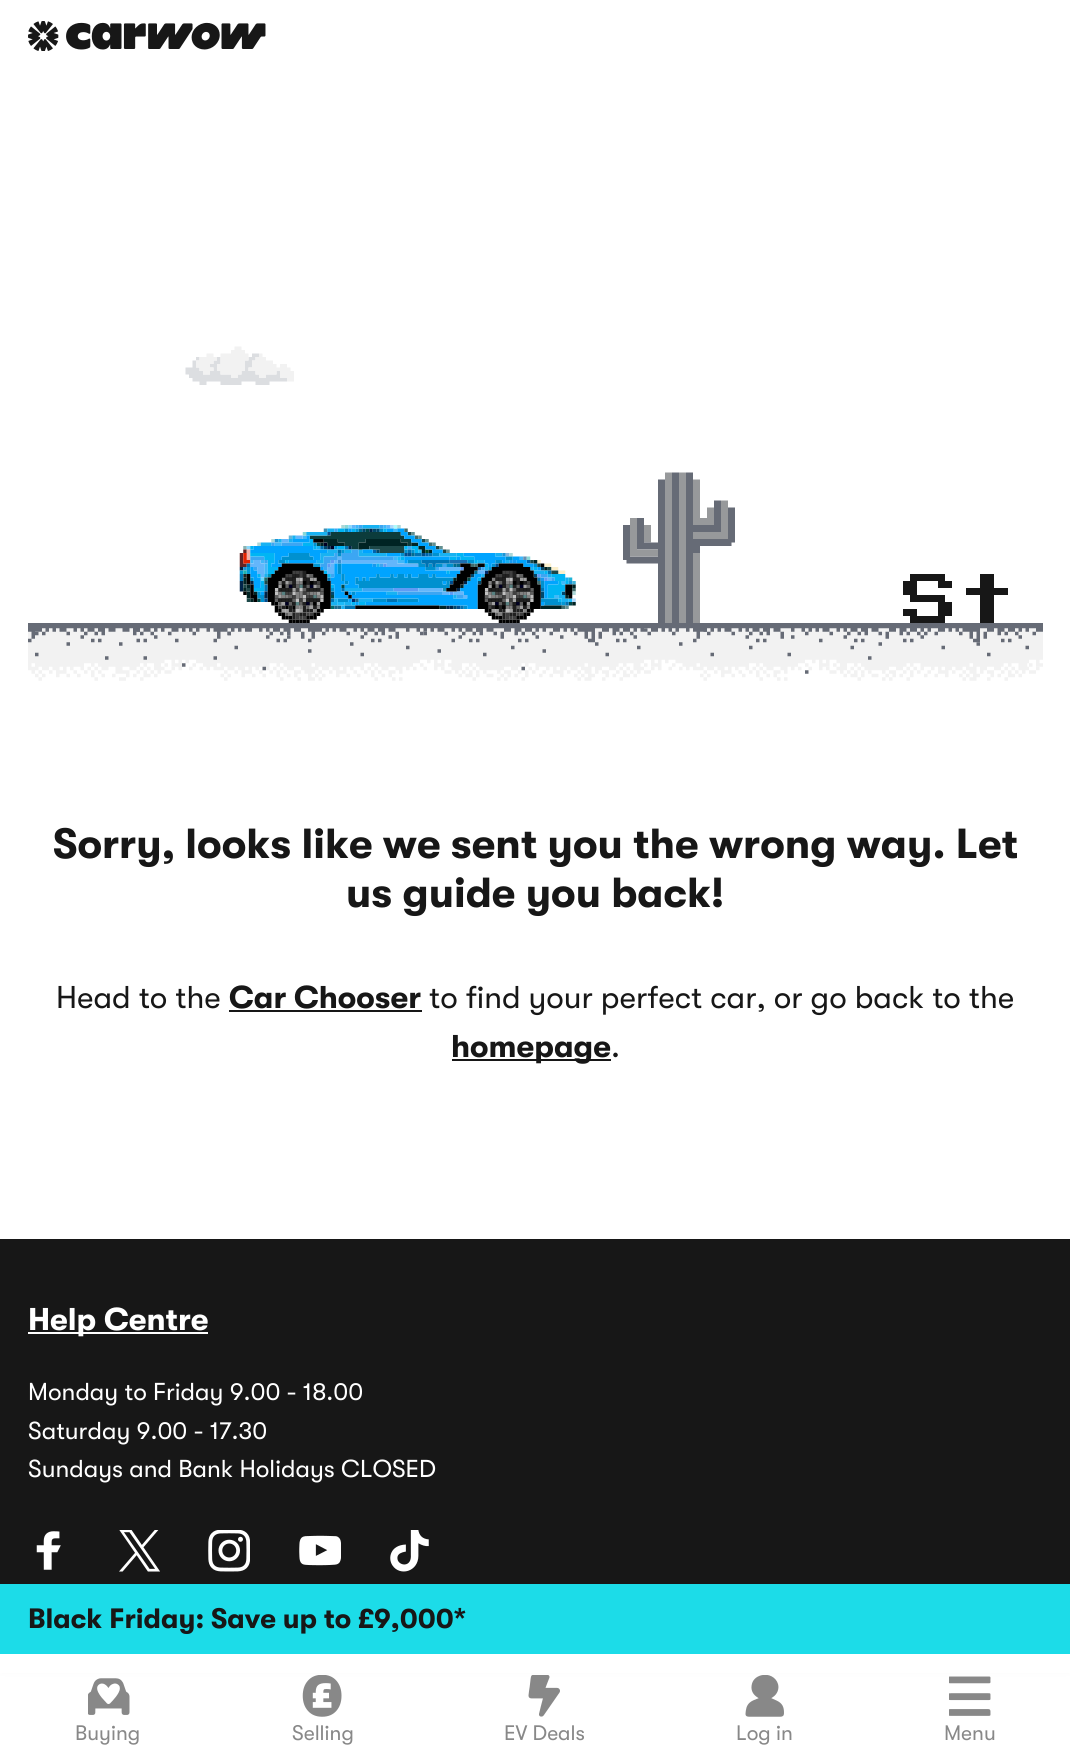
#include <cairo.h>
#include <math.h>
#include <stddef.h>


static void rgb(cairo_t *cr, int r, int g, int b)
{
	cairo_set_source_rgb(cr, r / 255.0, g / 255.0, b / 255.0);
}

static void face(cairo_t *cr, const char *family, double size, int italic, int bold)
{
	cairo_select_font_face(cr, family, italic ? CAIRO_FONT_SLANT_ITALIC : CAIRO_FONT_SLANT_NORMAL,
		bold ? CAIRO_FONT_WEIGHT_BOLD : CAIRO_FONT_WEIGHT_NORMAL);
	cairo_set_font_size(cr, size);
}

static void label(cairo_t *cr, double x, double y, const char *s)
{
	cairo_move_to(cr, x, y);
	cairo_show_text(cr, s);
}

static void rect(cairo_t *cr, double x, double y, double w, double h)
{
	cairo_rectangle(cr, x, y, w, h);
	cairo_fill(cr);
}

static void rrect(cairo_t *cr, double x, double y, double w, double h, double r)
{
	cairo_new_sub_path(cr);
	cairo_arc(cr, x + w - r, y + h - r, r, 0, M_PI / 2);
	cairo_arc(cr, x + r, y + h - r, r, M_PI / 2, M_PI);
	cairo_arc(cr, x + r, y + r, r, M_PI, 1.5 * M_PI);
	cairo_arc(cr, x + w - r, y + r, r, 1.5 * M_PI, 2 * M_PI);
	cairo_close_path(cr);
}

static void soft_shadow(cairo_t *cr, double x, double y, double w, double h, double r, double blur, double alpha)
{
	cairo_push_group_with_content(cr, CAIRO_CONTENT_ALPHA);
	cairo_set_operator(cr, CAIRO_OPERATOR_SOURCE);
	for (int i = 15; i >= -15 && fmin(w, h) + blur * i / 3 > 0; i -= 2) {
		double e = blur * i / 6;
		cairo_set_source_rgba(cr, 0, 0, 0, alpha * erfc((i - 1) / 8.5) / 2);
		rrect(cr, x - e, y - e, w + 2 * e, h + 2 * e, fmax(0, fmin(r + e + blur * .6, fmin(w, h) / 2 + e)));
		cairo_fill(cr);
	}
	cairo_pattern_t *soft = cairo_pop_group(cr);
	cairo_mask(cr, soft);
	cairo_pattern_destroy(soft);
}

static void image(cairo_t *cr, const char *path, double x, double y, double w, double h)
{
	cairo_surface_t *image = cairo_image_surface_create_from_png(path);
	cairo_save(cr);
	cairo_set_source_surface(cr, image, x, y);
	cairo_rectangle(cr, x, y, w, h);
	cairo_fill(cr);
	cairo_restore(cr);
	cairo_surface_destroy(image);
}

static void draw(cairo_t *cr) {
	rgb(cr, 255, 255, 255);
	cairo_paint(cr);
	image(cr, "image0.png", 28, 346, 1015, 335);
	face(cr, "Press Start 2P", 56, 0, 0);
	rgb(cr, 23, 23, 23);
	label(cr, 903, 630, "St");
	face(cr, "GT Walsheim", 42, 0, 1);
	label(cr, 53, 858, "Sorry, looks like we sent you the wrong way. Let");
	label(cr, 346, 907, "us guide you back!");
	face(cr, "GT Walsheim", 31.5, 0, 0);
	label(cr, 56, 1008, "Head to the");
	face(cr, "GT Walsheim", 31.5, 0, 1);
	label(cr, 229, 1008, "Car Chooser");
	rect(cr, 229, 1010, 193, 2);
	face(cr, "GT Walsheim", 31.5, 0, 0);
	label(cr, 429, 1008, "to find your perfect car, or go back to the");
	rect(cr, 452, 1059, 159, 2);
	face(cr, "GT Walsheim", 31.5, 0, 1);
	label(cr, 451, 1057, "homepage");
	face(cr, "GT Walsheim", 31.5, 0, 0);
	label(cr, 611, 1057, ".");
	rect(cr, 0, 1239, 1070, 345);
	rgb(cr, 255, 255, 255);
	rect(cr, 28, 1332, 180, 2);
	face(cr, "GT Walsheim", 31.5, 0, 1);
	label(cr, 28, 1330, "Help Centre");
	face(cr, "GT Walsheim", 24.5, 0, 0);
	label(cr, 28, 1400, "Monday to Friday 9.00 - 18.00");
	label(cr, 28, 1439, "Saturday 9.00 - 17.30");
	label(cr, 28, 1477, "Sundays and Bank Holidays CLOSED");
	image(cr, "image1.png", 36, 1531, 25, 39);
	image(cr, "image2.png", 119, 1530, 41, 42);
	image(cr, "image3.png", 208, 1530, 42, 42);
	image(cr, "image4.png", 299, 1535, 42, 31);
	image(cr, "image5.png", 390, 1530, 39, 42);
	rgb(cr, 23, 23, 23);
	soft_shadow(cr, 0, 1587, 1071, 70, 0, 9, 0.3);
	rgb(cr, 28, 220, 232);
	rect(cr, 0, 1584, 1070, 70);
	face(cr, "GT Walsheim", 28, 0, 1);
	rgb(cr, 23, 23, 23);
	label(cr, 28, 1628, "Black Friday: Save up to £9,000*");
	image(cr, "image6.png", 28, 21, 238, 30);
	rgb(cr, 255, 255, 255);
	rect(cr, 0, 1654, 1070, 19);
	image(cr, "image7.png", 88, 1678, 42, 37);
	face(cr, "GT Walsheim", 21, 0, 0);
	rgb(cr, 136, 136, 136);
	label(cr, 75, 1740, "Buying");
	image(cr, "image8.png", 302, 1675, 40, 42);
	label(cr, 292, 1740, "Selling");
	image(cr, "image9.png", 528, 1675, 32, 42);
	label(cr, 504, 1740, "EV Deals");
	image(cr, "image10.png", 745, 1675, 39, 42);
	label(cr, 736, 1740, "Log in");
	image(cr, "image11.png", 949, 1676, 42, 40);
	label(cr, 944, 1740, "Menu");
}

int main(void) {
	cairo_surface_t *surface = cairo_image_surface_create(CAIRO_FORMAT_RGB24, 1070, 1761);
	cairo_t *cr = cairo_create(surface);
	cairo_font_options_t *options = cairo_font_options_create();
	cairo_font_options_set_hint_metrics(options, CAIRO_HINT_METRICS_OFF);
	cairo_font_options_set_hint_style(options, CAIRO_HINT_STYLE_NONE);
	cairo_set_font_options(cr, options);
	cairo_set_miter_limit(cr, 4);
	draw(cr);
	cairo_surface_write_to_png(surface, "render.png");
	cairo_font_options_destroy(options);
	cairo_destroy(cr);
	cairo_surface_destroy(surface);
	return 0;
}
